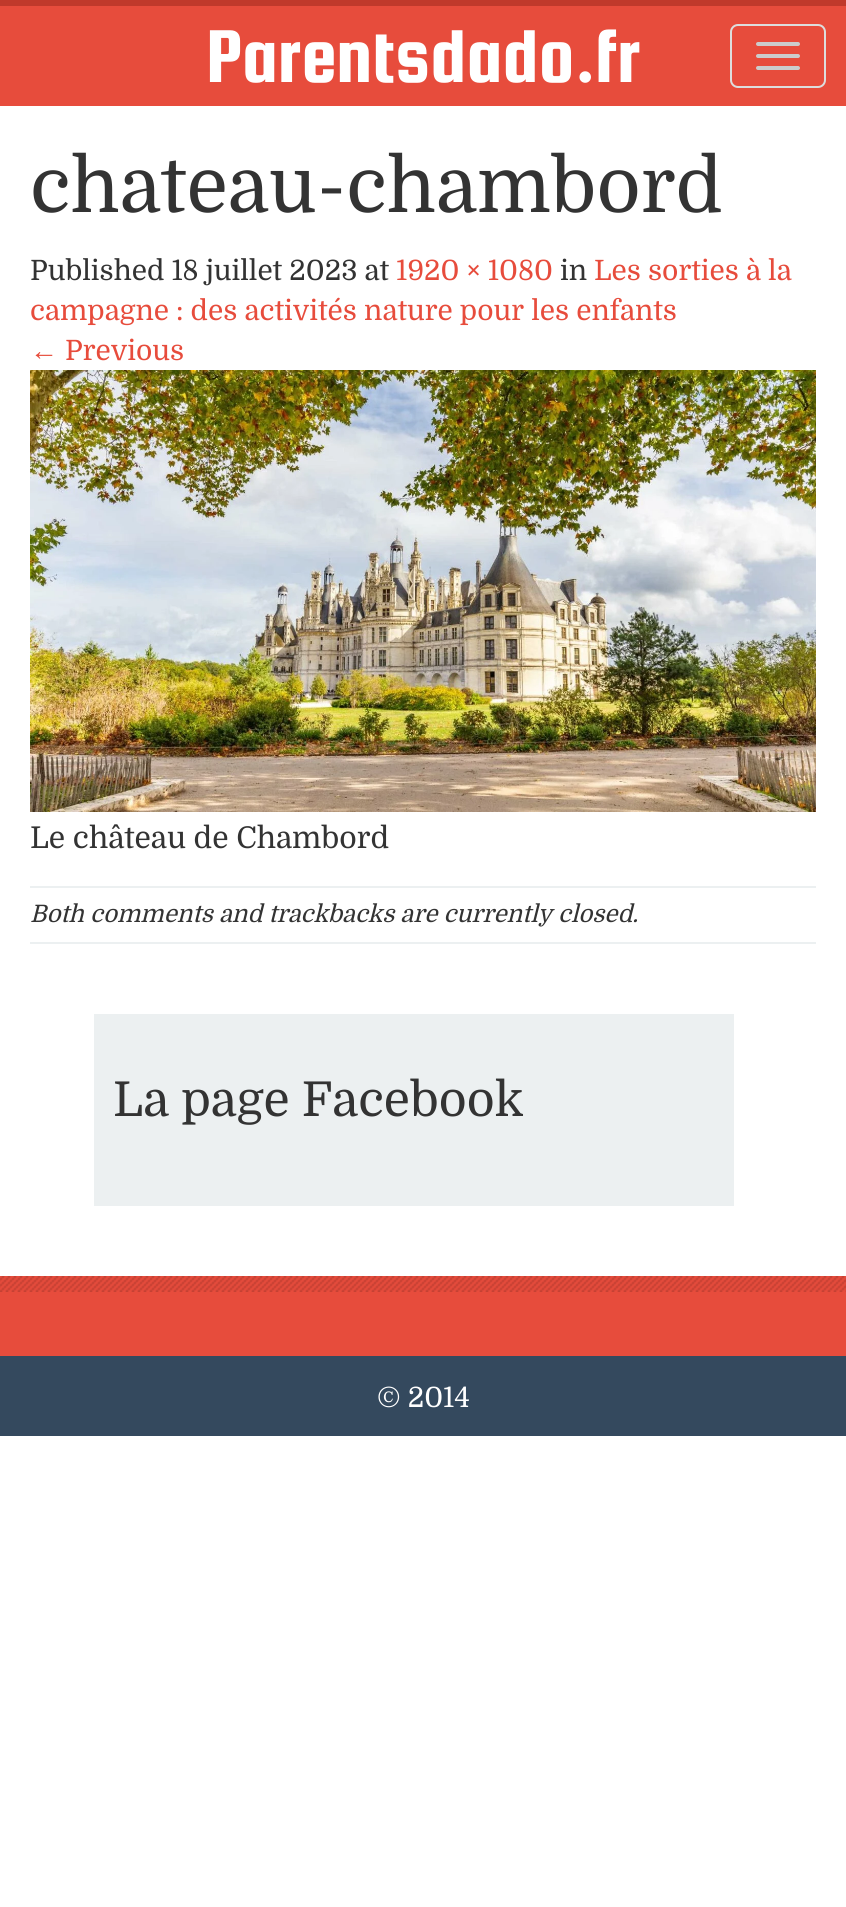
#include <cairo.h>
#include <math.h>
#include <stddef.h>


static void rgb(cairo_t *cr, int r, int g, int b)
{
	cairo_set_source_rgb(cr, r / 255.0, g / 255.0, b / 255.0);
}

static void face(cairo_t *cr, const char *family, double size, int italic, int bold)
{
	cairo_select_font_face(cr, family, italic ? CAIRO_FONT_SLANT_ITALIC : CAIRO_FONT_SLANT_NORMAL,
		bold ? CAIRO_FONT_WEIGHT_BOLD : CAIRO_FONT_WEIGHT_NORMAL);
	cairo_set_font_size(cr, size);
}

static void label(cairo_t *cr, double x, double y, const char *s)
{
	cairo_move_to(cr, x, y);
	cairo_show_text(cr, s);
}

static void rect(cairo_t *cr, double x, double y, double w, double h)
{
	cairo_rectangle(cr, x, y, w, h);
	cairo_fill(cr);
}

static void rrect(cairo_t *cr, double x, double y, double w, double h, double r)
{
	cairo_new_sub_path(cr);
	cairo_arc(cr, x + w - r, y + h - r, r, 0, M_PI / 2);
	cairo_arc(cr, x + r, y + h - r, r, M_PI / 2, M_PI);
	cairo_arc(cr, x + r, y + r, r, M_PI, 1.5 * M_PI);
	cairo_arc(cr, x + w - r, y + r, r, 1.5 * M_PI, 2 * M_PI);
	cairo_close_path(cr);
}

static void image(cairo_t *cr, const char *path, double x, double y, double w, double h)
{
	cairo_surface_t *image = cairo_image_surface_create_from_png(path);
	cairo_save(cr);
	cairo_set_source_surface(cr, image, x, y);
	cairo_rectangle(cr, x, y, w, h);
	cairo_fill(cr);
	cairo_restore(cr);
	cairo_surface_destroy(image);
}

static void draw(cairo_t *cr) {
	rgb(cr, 255, 255, 255);
	cairo_paint(cr);
	rgb(cr, 192, 57, 43);
	rect(cr, 0, 0, 846, 6);
	rgb(cr, 231, 76, 60);
	rect(cr, 0, 6, 846, 100);
	face(cr, "Squada One", 80, 0, 0);
	rgb(cr, 255, 255, 255);
	label(cr, 206, 82, "Parentsdado.fr");
	rrect(cr, 731, 25, 94, 62, 7);
	rgb(cr, 221, 221, 221);
	cairo_stroke(cr);
	rgb(cr, 204, 204, 204);
	rrect(cr, 756, 42, 44, 4, 2);
	cairo_fill(cr);
	rrect(cr, 756, 54, 44, 4, 2);
	cairo_fill(cr);
	rrect(cr, 756, 66, 44, 4, 2);
	cairo_fill(cr);
	face(cr, "Domine", 76, 0, 0);
	rgb(cr, 51, 51, 51);
	label(cr, 30, 212, "chateau-chambord");
	face(cr, "Domine", 28, 0, 0);
	label(cr, 30, 280, "Published 18 juillet 2023 at");
	rgb(cr, 231, 76, 60);
	label(cr, 396, 280, "1920 × 1080");
	rgb(cr, 51, 51, 51);
	label(cr, 560, 280, "in");
	rgb(cr, 231, 76, 60);
	label(cr, 594, 280, "Les sorties à la");
	label(cr, 30, 320, "campagne : des activités nature pour les enfants");
	face(cr, "Liberation Serif", 28, 0, 0);
	label(cr, 30, 360, "←");
	face(cr, "Domine", 28, 0, 0);
	label(cr, 65, 360, "Previous");
	image(cr, "image0.png", 30, 370, 786, 442);
	face(cr, "Domine", 30, 0, 0);
	rgb(cr, 51, 51, 51);
	label(cr, 30, 848, "Le château de Chambord");
	rgb(cr, 236, 240, 241);
	rect(cr, 30, 886, 786, 2);
	rect(cr, 30, 942, 786, 2);
	face(cr, "Domine", 24, 1, 0);
	rgb(cr, 51, 51, 51);
	label(cr, 30, 922, "Both comments and trackbacks are currently closed.");
	rgb(cr, 236, 240, 241);
	rect(cr, 94, 1014, 640, 192);
	face(cr, "Domine", 48, 0, 0);
	rgb(cr, 51, 51, 51);
	label(cr, 113, 1116, "La page Facebook");
	rgb(cr, 231, 76, 60);
	rect(cr, 0, 1276, 846, 80);
	image(cr, "image1.png", 0, 1276, 846, 16);
	rgb(cr, 52, 73, 94);
	rect(cr, 0, 1356, 846, 80);
	face(cr, "Domine", 28, 0, 0);
	rgb(cr, 255, 255, 255);
	label(cr, 377, 1407, "© 2014");
}

int main(void) {
	cairo_surface_t *surface = cairo_image_surface_create(CAIRO_FORMAT_RGB24, 846, 1907);
	cairo_t *cr = cairo_create(surface);
	cairo_font_options_t *options = cairo_font_options_create();
	cairo_font_options_set_hint_metrics(options, CAIRO_HINT_METRICS_OFF);
	cairo_font_options_set_hint_style(options, CAIRO_HINT_STYLE_NONE);
	cairo_set_font_options(cr, options);
	cairo_set_miter_limit(cr, 4);
	draw(cr);
	cairo_surface_write_to_png(surface, "render.png");
	cairo_font_options_destroy(options);
	cairo_destroy(cr);
	cairo_surface_destroy(surface);
	return 0;
}
